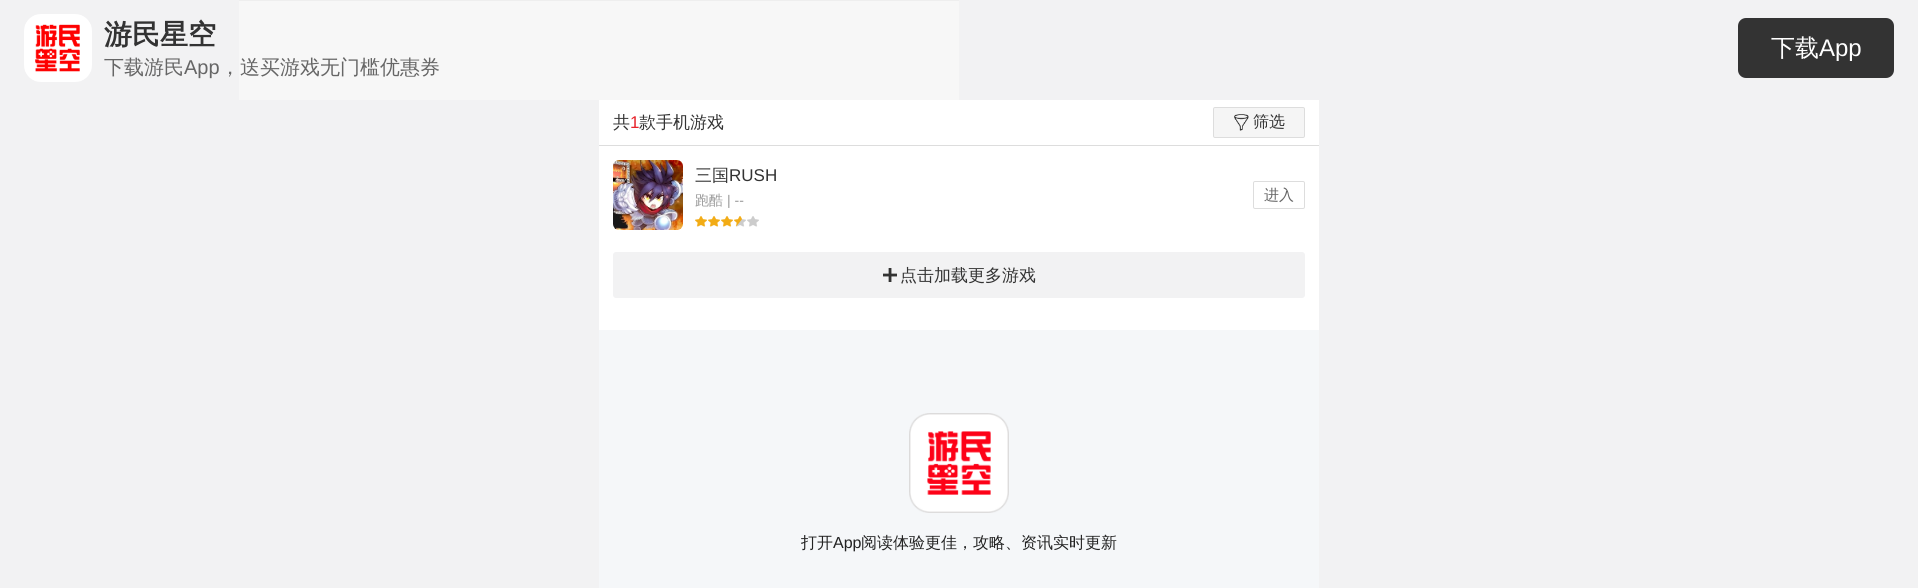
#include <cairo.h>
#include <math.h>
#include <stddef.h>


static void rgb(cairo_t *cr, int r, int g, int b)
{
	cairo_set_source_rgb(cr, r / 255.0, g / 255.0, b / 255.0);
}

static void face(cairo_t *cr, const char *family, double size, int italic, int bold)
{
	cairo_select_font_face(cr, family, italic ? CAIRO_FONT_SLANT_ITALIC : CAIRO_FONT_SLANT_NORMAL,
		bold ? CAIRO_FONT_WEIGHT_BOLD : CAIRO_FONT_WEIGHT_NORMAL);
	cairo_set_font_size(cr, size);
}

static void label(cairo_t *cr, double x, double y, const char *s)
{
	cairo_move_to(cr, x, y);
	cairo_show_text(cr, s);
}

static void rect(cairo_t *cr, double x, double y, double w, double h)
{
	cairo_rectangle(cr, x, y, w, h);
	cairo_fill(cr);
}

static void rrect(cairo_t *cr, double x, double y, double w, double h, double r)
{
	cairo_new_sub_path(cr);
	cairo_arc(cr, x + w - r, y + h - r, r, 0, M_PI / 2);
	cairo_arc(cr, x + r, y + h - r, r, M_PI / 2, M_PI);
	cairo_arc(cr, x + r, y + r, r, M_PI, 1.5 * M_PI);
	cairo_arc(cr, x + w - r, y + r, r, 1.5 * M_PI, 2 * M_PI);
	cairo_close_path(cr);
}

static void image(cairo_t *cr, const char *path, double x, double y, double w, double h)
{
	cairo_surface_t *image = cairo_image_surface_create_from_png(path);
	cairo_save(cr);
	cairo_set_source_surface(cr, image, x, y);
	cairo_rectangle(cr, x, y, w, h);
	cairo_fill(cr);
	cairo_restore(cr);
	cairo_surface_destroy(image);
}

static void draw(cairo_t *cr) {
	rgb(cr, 242, 242, 243);
	cairo_paint(cr);
	rgb(cr, 247, 247, 247);
	rect(cr, 239, 1, 720, 99);
	rgb(cr, 238, 238, 238);
	rect(cr, 239, 0, 720, 1);
	image(cr, "image0.png", 24, 14, 68, 68);
	face(cr, "WenQuanYi Zen Hei", 28, 0, 1);
	rgb(cr, 51, 51, 51);
	label(cr, 104, 44, "游民星空");
	face(cr, "WenQuanYi Zen Hei Medium", 20, 0, 0);
	rgb(cr, 102, 102, 102);
	label(cr, 104, 74, "下载游民");
	face(cr, "Liberation Sans", 20, 0, 0);
	label(cr, 184, 74, "App");
	face(cr, "WenQuanYi Zen Hei Medium", 20, 0, 0);
	label(cr, 220, 74, "，送买游戏无门槛优惠券");
	rgb(cr, 51, 51, 51);
	rrect(cr, 1738, 18, 156, 60, 8);
	cairo_fill(cr);
	face(cr, "WenQuanYi Zen Hei Medium", 24, 0, 0);
	rgb(cr, 255, 255, 255);
	label(cr, 1771, 56, "下载");
	face(cr, "Liberation Sans", 24, 0, 0);
	label(cr, 1819, 56, "App");
	rect(cr, 599, 100, 720, 230);
	rgb(cr, 221, 221, 221);
	rect(cr, 599, 145, 720, 1);
	face(cr, "WenQuanYi Zen Hei Medium", 17, 0, 0);
	rgb(cr, 51, 51, 51);
	label(cr, 613, 128, "共");
	face(cr, "Liberation Sans", 17, 0, 0);
	rgb(cr, 231, 34, 42);
	label(cr, 630, 128, "1");
	face(cr, "WenQuanYi Zen Hei Medium", 17, 0, 0);
	rgb(cr, 51, 51, 51);
	label(cr, 639, 128, "款手机游戏");
	rgb(cr, 245, 245, 245);
	rrect(cr, 1213.5, 107.5, 91, 30, 1.5);
	cairo_fill_preserve(cr);
	rgb(cr, 221, 221, 221);
	cairo_set_line_width(cr, 1);
	cairo_stroke(cr);
	image(cr, "image1.png", 1234, 114, 15, 17);
	face(cr, "WenQuanYi Zen Hei Medium", 16, 0, 0);
	rgb(cr, 51, 51, 51);
	label(cr, 1253, 127, "筛选");
	image(cr, "image2.png", 613, 160, 70, 70);
	face(cr, "WenQuanYi Zen Hei Medium", 17, 0, 0);
	label(cr, 695, 181, "三国");
	face(cr, "Liberation Sans", 17, 0, 0);
	label(cr, 729, 181, "RUSH");
	face(cr, "WenQuanYi Zen Hei Medium", 14, 0, 0);
	rgb(cr, 153, 153, 153);
	label(cr, 695, 205, "跑酷");
	face(cr, "Liberation Sans", 14, 0, 0);
	label(cr, 727, 205, "| --");
	image(cr, "image3.png", 695, 216, 64, 11);
	rrect(cr, 1253.5, 181.5, 51, 27, 1.5);
	rgb(cr, 221, 221, 221);
	cairo_stroke(cr);
	face(cr, "WenQuanYi Zen Hei Medium", 15, 0, 0);
	rgb(cr, 102, 102, 102);
	label(cr, 1264, 200, "进入");
	rgb(cr, 242, 242, 243);
	rrect(cr, 613, 252, 692, 46, 3);
	cairo_fill(cr);
	image(cr, "image4.png", 883, 268, 14, 14);
	face(cr, "WenQuanYi Zen Hei Medium", 17, 0, 0);
	rgb(cr, 51, 51, 51);
	label(cr, 900, 281, "点击加载更多游戏");
	rgb(cr, 245, 247, 249);
	rect(cr, 599, 330, 720, 258);
	image(cr, "image5.png", 909, 413, 100, 100);
	face(cr, "WenQuanYi Zen Hei Medium", 16, 0, 0);
	rgb(cr, 34, 34, 34);
	label(cr, 801, 548, "打开");
	face(cr, "Liberation Sans", 16, 0, 0);
	label(cr, 833, 548, "App");
	face(cr, "WenQuanYi Zen Hei Medium", 16, 0, 0);
	label(cr, 861, 548, "阅读体验更佳，攻略、资讯实时更新");
}

int main(void) {
	cairo_surface_t *surface = cairo_image_surface_create(CAIRO_FORMAT_RGB24, 1918, 588);
	cairo_t *cr = cairo_create(surface);
	cairo_font_options_t *options = cairo_font_options_create();
	cairo_font_options_set_hint_metrics(options, CAIRO_HINT_METRICS_OFF);
	cairo_font_options_set_hint_style(options, CAIRO_HINT_STYLE_NONE);
	cairo_set_font_options(cr, options);
	cairo_set_miter_limit(cr, 4);
	draw(cr);
	cairo_surface_write_to_png(surface, "render.png");
	cairo_font_options_destroy(options);
	cairo_destroy(cr);
	cairo_surface_destroy(surface);
	return 0;
}
